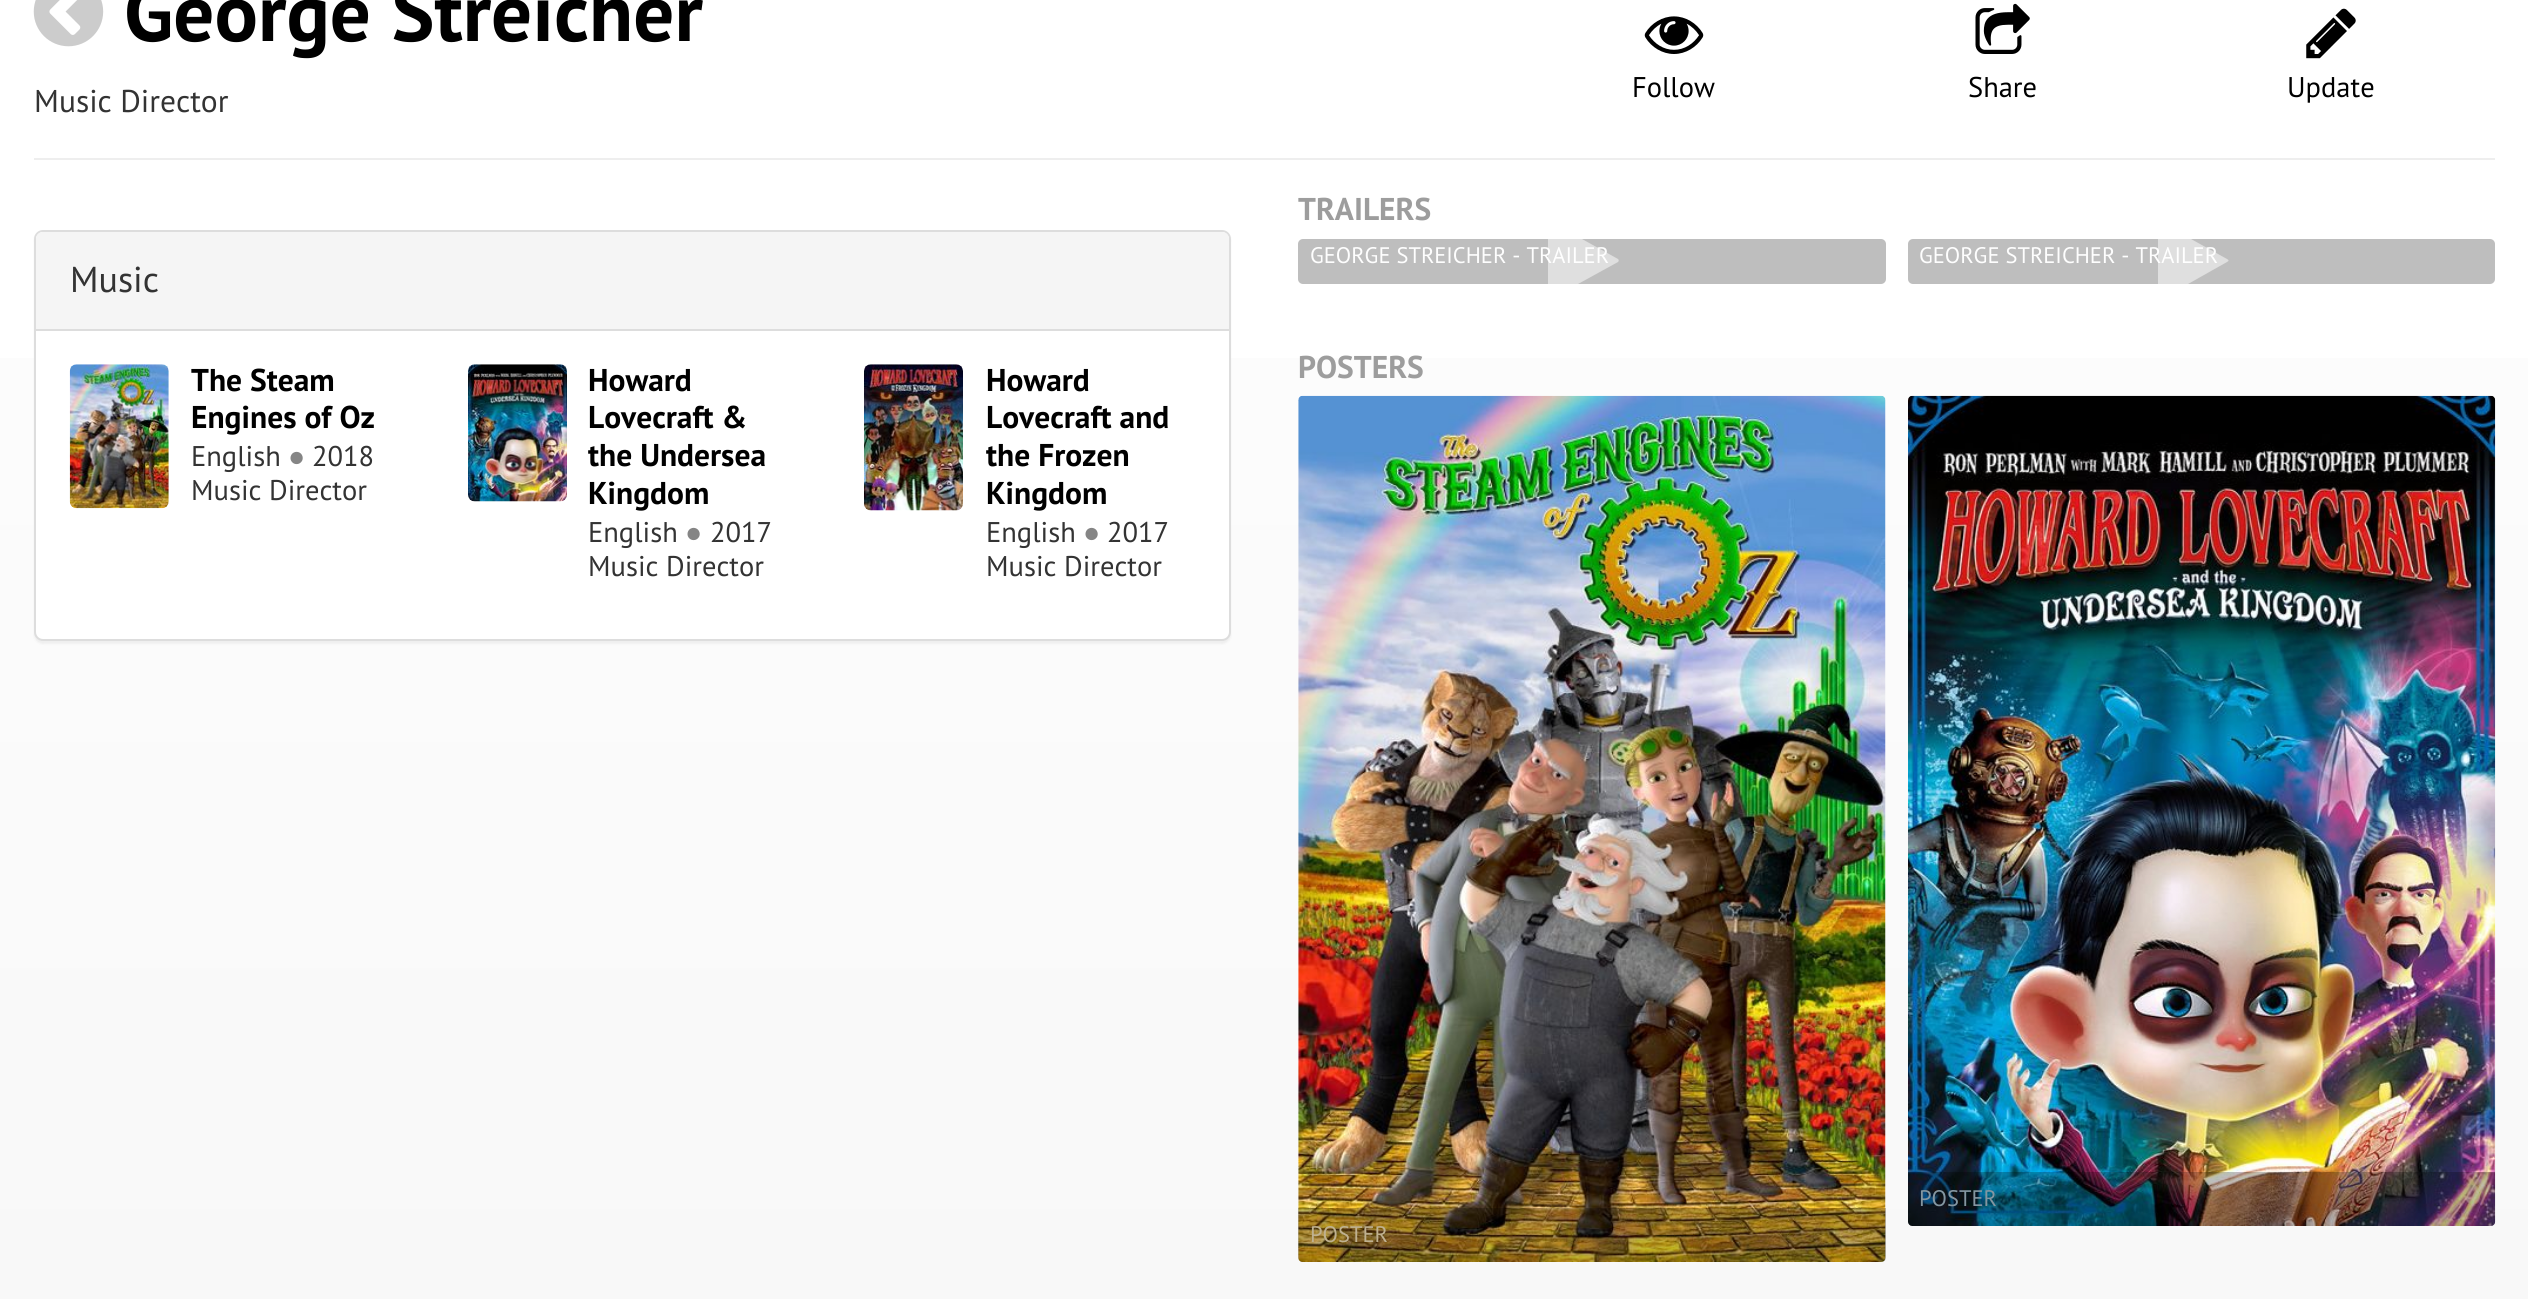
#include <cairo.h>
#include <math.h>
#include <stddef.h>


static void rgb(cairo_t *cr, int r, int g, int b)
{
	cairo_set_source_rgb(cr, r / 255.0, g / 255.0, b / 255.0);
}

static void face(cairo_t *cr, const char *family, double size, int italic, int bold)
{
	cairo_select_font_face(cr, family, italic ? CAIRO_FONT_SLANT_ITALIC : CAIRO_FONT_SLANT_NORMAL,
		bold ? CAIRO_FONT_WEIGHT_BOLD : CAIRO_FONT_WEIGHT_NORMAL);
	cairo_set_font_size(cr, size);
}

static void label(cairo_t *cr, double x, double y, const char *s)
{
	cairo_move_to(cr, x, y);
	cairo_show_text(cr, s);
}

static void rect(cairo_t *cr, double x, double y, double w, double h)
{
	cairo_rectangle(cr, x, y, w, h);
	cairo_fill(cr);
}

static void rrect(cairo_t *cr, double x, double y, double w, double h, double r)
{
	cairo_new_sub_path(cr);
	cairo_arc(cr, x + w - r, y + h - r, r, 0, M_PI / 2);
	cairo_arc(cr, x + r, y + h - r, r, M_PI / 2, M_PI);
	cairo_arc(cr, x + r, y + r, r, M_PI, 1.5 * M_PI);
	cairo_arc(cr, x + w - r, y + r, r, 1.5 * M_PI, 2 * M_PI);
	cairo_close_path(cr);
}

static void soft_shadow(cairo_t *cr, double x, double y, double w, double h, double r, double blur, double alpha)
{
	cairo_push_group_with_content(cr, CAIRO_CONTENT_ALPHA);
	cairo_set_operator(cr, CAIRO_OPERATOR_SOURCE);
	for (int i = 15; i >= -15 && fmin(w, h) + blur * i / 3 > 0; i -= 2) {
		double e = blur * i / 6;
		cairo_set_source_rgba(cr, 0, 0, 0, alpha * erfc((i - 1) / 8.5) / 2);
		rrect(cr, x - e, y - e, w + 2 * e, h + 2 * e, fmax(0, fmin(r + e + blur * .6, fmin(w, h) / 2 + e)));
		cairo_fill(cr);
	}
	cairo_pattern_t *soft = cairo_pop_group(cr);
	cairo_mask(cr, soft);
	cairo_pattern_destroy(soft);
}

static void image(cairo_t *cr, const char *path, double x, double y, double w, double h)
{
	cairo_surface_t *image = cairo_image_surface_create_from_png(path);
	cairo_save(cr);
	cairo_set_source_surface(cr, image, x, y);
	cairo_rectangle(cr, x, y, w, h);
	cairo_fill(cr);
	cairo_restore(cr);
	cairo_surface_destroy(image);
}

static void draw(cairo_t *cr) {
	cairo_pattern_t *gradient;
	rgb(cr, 255, 255, 255);
	cairo_paint(cr);
	gradient = cairo_pattern_create_linear(1265, 0, 1265, 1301);
	cairo_pattern_add_color_stop_rgba(gradient, 0, 1, 1, 1, 1);
	cairo_pattern_add_color_stop_rgba(gradient, 0.33, 0.988, 0.988, 0.988, 1);
	cairo_pattern_add_color_stop_rgba(gradient, 0.67, 0.98, 0.98, 0.98, 1);
	cairo_pattern_add_color_stop_rgba(gradient, 1, 0.973, 0.973, 0.973, 1);
	cairo_set_source(cr, gradient);
	cairo_pattern_destroy(gradient);
	rect(cr, 0, 358, 2528, 941);
	image(cr, "image0.png", 33, 0, 71, 47);
	face(cr, "PT Sans", 81, 0, 1);
	rgb(cr, 0, 0, 0);
	label(cr, 124, 41, "George Streicher");
	face(cr, "PT Sans", 31.5, 0, 0);
	rgb(cr, 51, 51, 51);
	label(cr, 34, 112, "Music Director");
	image(cr, "image1.png", 1644, 16, 60, 38);
	face(cr, "PT Sans", 28.5, 0, 0);
	rgb(cr, 0, 0, 0);
	label(cr, 1632, 97, "Follow");
	image(cr, "image2.png", 1975, 3, 55, 51);
	label(cr, 1968, 97, "Share");
	image(cr, "image3.png", 2306, 8, 50, 51);
	label(cr, 2287, 97, "Update");
	rgb(cr, 238, 238, 238);
	rect(cr, 34, 158, 2461, 2);
	rgb(cr, 0, 0, 0);
	soft_shadow(cr, 34, 232, 1197, 412, 9, 1, 0.05);
	rgb(cr, 255, 255, 255);
	rrect(cr, 35, 231, 1195, 409, 8);
	cairo_fill_preserve(cr);
	rgb(cr, 221, 221, 221);
	cairo_stroke(cr);
	rgb(cr, 245, 245, 245);
	cairo_new_path(cr);
	cairo_move_to(cr, 43, 232);
	cairo_line_to(cr, 1222, 232);
	cairo_curve_to(cr, 1226, 232, 1229, 235, 1229, 239);
	cairo_line_to(cr, 1229, 331);
	cairo_line_to(cr, 36, 331);
	cairo_line_to(cr, 36, 239);
	cairo_curve_to(cr, 36, 235, 39, 232, 43, 232);
	cairo_close_path(cr);
	cairo_fill(cr);
	rgb(cr, 221, 221, 221);
	rect(cr, 36, 329, 1193, 2);
	face(cr, "PT Sans", 36, 0, 0);
	rgb(cr, 51, 51, 51);
	label(cr, 70, 292, "Music");
	image(cr, "image4.png", 69, 364, 100, 145);
	face(cr, "PT Sans", 31.5, 0, 1);
	rgb(cr, 0, 0, 0);
	label(cr, 191, 391, "The Steam");
	label(cr, 191, 428, "Engines of Oz");
	face(cr, "PT Sans", 28.5, 0, 0);
	rgb(cr, 51, 51, 51);
	label(cr, 191, 466, "English");
	face(cr, "Liberation Serif", 28.5, 0, 0);
	rgb(cr, 133, 133, 133);
	label(cr, 288, 466, "●");
	face(cr, "PT Sans", 28.5, 0, 0);
	rgb(cr, 51, 51, 51);
	label(cr, 312, 466, "2018");
	label(cr, 191, 500, "Music Director");
	image(cr, "image5.png", 468, 364, 99, 138);
	face(cr, "PT Sans", 31.5, 0, 1);
	rgb(cr, 0, 0, 0);
	label(cr, 588, 391, "Howard");
	label(cr, 588, 428, "Lovecraft &");
	label(cr, 588, 466, "the Undersea");
	label(cr, 588, 504, "Kingdom");
	face(cr, "PT Sans", 28.5, 0, 0);
	rgb(cr, 51, 51, 51);
	label(cr, 588, 542, "English");
	face(cr, "Liberation Serif", 28.5, 0, 0);
	rgb(cr, 133, 133, 133);
	label(cr, 685, 542, "●");
	face(cr, "PT Sans", 28.5, 0, 0);
	rgb(cr, 51, 51, 51);
	label(cr, 710, 542, "2017");
	label(cr, 588, 576, "Music Director");
	image(cr, "image6.png", 864, 364, 99, 147);
	face(cr, "PT Sans", 31.5, 0, 1);
	rgb(cr, 0, 0, 0);
	label(cr, 986, 391, "Howard");
	label(cr, 986, 428, "Lovecraft and");
	label(cr, 986, 466, "the Frozen");
	label(cr, 986, 504, "Kingdom");
	face(cr, "PT Sans", 28.5, 0, 0);
	rgb(cr, 51, 51, 51);
	label(cr, 986, 542, "English");
	face(cr, "Liberation Serif", 28.5, 0, 0);
	rgb(cr, 133, 133, 133);
	label(cr, 1083, 542, "●");
	face(cr, "PT Sans", 28.5, 0, 0);
	rgb(cr, 51, 51, 51);
	label(cr, 1107, 542, "2017");
	label(cr, 986, 576, "Music Director");
	face(cr, "PT Sans", 31.5, 0, 1);
	rgb(cr, 157, 157, 157);
	label(cr, 1298, 220, "TRAILERS");
	rgb(cr, 190, 190, 190);
	rrect(cr, 1298, 239, 588, 45, 5);
	cairo_fill(cr);
	face(cr, "PT Sans", 22.5, 0, 0);
	rgb(cr, 254, 254, 254);
	label(cr, 1310, 263, "GEORGE STREICHER - TRAILER");
	cairo_set_source_rgba(cr, 1, 1, 1, 0.5);
	cairo_new_path(cr);
	cairo_move_to(cr, 1618, 262);
	cairo_line_to(cr, 1578, 284);
	cairo_line_to(cr, 1548, 284);
	cairo_line_to(cr, 1548, 239);
	cairo_line_to(cr, 1582, 239);
	cairo_line_to(cr, 1618, 259);
	cairo_curve_to(cr, 1619, 260, 1619, 261, 1618, 262);
	cairo_close_path(cr);
	cairo_fill(cr);
	rgb(cr, 190, 190, 190);
	rrect(cr, 1908, 239, 587, 45, 5);
	cairo_fill(cr);
	rgb(cr, 254, 254, 254);
	label(cr, 1919, 263, "GEORGE STREICHER - TRAILER");
	cairo_set_source_rgba(cr, 1, 1, 1, 0.5);
	cairo_new_path(cr);
	cairo_move_to(cr, 2227, 262);
	cairo_line_to(cr, 2188, 284);
	cairo_line_to(cr, 2158, 284);
	cairo_line_to(cr, 2158, 239);
	cairo_line_to(cr, 2191, 239);
	cairo_line_to(cr, 2227, 259);
	cairo_curve_to(cr, 2229, 260, 2229, 261, 2227, 262);
	cairo_close_path(cr);
	cairo_fill(cr);
	face(cr, "PT Sans", 31.5, 0, 1);
	rgb(cr, 157, 157, 157);
	label(cr, 1298, 378, "POSTERS");
	image(cr, "image7.png", 1908, 395, 588, 831);
	cairo_set_source_rgba(cr, 0, 0, 0, 0.25);
	cairo_new_path(cr);
	cairo_move_to(cr, 1908, 1172);
	cairo_line_to(cr, 2495, 1172);
	cairo_line_to(cr, 2495, 1221);
	cairo_curve_to(cr, 2495, 1224, 2493, 1226, 2490, 1226);
	cairo_line_to(cr, 1913, 1226);
	cairo_curve_to(cr, 1910, 1226, 1908, 1224, 1908, 1221);
	cairo_close_path(cr);
	cairo_fill(cr);
	face(cr, "PT Sans", 22.5, 0, 0);
	rgb(cr, 132, 150, 161);
	label(cr, 1919, 1206, "POSTER");
	image(cr, "image8.png", 1298, 395, 588, 867);
	cairo_set_source_rgba(cr, 0, 0, 0, 0.25);
	cairo_new_path(cr);
	cairo_move_to(cr, 1298, 1208);
	cairo_line_to(cr, 1886, 1208);
	cairo_line_to(cr, 1886, 1257);
	cairo_curve_to(cr, 1886, 1260, 1884, 1262, 1881, 1262);
	cairo_line_to(cr, 1303, 1262);
	cairo_curve_to(cr, 1300, 1262, 1298, 1260, 1298, 1257);
	cairo_close_path(cr);
	cairo_fill(cr);
	rgb(cr, 191, 177, 145);
	label(cr, 1310, 1242, "POSTER");
}

int main(void) {
	cairo_surface_t *surface = cairo_image_surface_create(CAIRO_FORMAT_RGB24, 2528, 1299);
	cairo_t *cr = cairo_create(surface);
	cairo_font_options_t *options = cairo_font_options_create();
	cairo_font_options_set_hint_metrics(options, CAIRO_HINT_METRICS_OFF);
	cairo_font_options_set_hint_style(options, CAIRO_HINT_STYLE_NONE);
	cairo_set_font_options(cr, options);
	cairo_set_miter_limit(cr, 4);
	draw(cr);
	cairo_surface_write_to_png(surface, "render.png");
	cairo_font_options_destroy(options);
	cairo_destroy(cr);
	cairo_surface_destroy(surface);
	return 0;
}
